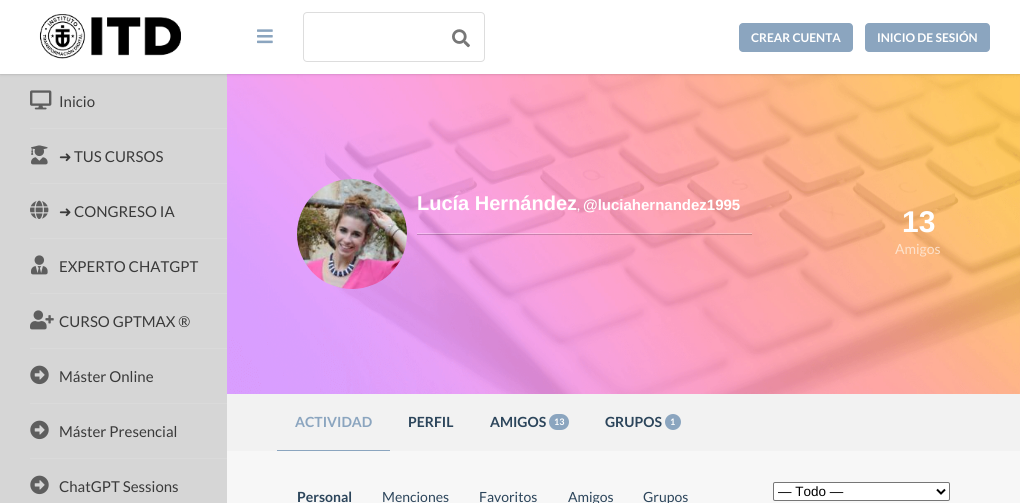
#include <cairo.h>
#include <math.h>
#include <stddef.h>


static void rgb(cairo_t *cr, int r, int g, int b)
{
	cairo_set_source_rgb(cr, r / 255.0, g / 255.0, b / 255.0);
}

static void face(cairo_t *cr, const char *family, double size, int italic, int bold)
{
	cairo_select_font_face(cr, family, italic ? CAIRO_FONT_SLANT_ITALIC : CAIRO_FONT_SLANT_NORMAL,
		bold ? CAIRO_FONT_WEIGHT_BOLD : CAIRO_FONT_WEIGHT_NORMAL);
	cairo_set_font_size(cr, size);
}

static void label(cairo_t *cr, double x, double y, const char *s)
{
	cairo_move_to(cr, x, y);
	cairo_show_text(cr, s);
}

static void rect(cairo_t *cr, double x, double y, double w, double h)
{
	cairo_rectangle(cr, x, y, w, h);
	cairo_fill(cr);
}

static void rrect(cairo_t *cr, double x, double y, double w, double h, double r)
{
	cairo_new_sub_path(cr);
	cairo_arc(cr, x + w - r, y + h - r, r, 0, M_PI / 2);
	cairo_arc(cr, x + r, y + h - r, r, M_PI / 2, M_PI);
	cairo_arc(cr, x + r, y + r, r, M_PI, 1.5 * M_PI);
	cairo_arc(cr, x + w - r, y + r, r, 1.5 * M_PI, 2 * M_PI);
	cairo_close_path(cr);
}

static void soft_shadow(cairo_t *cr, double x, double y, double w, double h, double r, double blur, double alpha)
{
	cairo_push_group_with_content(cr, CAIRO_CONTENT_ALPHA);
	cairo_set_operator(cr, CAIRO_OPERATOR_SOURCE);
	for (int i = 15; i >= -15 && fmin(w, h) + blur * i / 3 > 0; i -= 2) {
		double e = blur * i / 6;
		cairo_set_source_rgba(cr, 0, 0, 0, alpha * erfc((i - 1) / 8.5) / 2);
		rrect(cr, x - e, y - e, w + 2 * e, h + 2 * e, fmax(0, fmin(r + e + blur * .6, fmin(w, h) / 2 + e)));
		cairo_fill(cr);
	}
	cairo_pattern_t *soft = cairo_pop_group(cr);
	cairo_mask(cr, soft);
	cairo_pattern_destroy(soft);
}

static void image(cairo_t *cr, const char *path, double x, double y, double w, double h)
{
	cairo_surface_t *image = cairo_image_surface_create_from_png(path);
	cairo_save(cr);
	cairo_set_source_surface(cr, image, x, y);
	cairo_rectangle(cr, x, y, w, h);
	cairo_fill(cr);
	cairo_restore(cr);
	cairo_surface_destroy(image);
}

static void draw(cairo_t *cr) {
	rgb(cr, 214, 214, 214);
	cairo_paint(cr);
	image(cr, "image9.png", 227, 74, 793, 320);
	cairo_set_source_rgba(cr, 0, 0, 0, 0.05);
	rect(cr, 227, 74, 793, 1);
	rgb(cr, 0, 0, 0);
	soft_shadow(cr, 227, 2, 793, 74, 0, 1, 0.05);
	cairo_set_source_rgba(cr, 0, 0, 0, 0.05);
	rect(cr, 0, 74, 227, 1);
	rgb(cr, 0, 0, 0);
	soft_shadow(cr, 0, 2, 227, 74, 0, 1, 0.05);
	rgb(cr, 255, 255, 255);
	rect(cr, 0, 0, 1020, 74);
	image(cr, "image0.png", 39, 14, 142, 45);
	image(cr, "image1.png", 257, 29, 16, 15);
	rrect(cr, 303.5, 12.5, 181, 49, 3.5);
	rgb(cr, 221, 221, 221);
	cairo_set_line_width(cr, 1);
	cairo_stroke(cr);
	image(cr, "image2.png", 452, 29, 18, 19);
	rgb(cr, 139, 165, 191);
	rrect(cr, 739, 23, 114, 29, 4);
	cairo_fill(cr);
	face(cr, "Lato", 12, 0, 1);
	rgb(cr, 255, 255, 255);
	label(cr, 751, 42, "CREAR CUENTA");
	rgb(cr, 139, 165, 191);
	rrect(cr, 865, 23, 125, 29, 4);
	cairo_fill(cr);
	rgb(cr, 255, 255, 255);
	label(cr, 877, 42, "INICIO DE SESIÓN");
	image(cr, "image3.png", 30, 90, 22, 20);
	face(cr, "Lato", 15, 0, 0);
	rgb(cr, 58, 58, 58);
	label(cr, 59, 107, "Inicio");
	rgb(cr, 218, 218, 218);
	rect(cr, 30, 128, 197, 1);
	image(cr, "image4.png", 31, 145, 17, 20);
	face(cr, "DejaVu Sans", 15, 0, 0);
	rgb(cr, 58, 58, 58);
	label(cr, 59, 162, "➜");
	face(cr, "Lato", 15, 0, 0);
	label(cr, 74, 162, "TUS CURSOS");
	rgb(cr, 218, 218, 218);
	rect(cr, 30, 183, 197, 1);
	image(cr, "image5.png", 30, 200, 19, 19);
	face(cr, "DejaVu Sans", 15, 0, 0);
	rgb(cr, 58, 58, 58);
	label(cr, 59, 217, "➜");
	face(cr, "Lato", 15, 0, 0);
	label(cr, 74, 217, "CONGRESO IA");
	rgb(cr, 218, 218, 218);
	rect(cr, 30, 238, 197, 1);
	image(cr, "image6.png", 31, 255, 17, 20);
	rgb(cr, 58, 58, 58);
	label(cr, 59, 272, "EXPERTO CHATGPT");
	rgb(cr, 218, 218, 218);
	rect(cr, 30, 293, 197, 1);
	image(cr, "image7.png", 30, 310, 24, 20);
	rgb(cr, 58, 58, 58);
	label(cr, 59, 327, "CURSO GPTMAX ®");
	rgb(cr, 218, 218, 218);
	rect(cr, 30, 348, 197, 1);
	image(cr, "image8.png", 30, 365, 19, 20);
	rgb(cr, 58, 58, 58);
	label(cr, 59, 382, "Máster Online");
	rgb(cr, 218, 218, 218);
	rect(cr, 30, 403, 197, 1);
	image(cr, "image8.png", 30, 420, 19, 20);
	rgb(cr, 58, 58, 58);
	label(cr, 59, 437, "Máster Presencial");
	rgb(cr, 218, 218, 218);
	rect(cr, 30, 458, 197, 1);
	image(cr, "image8.png", 30, 475, 19, 20);
	rgb(cr, 58, 58, 58);
	label(cr, 59, 492, "ChatGPT Sessions");
	rgb(cr, 247, 247, 247);
	rect(cr, 227, 451, 793, 52);
	image(cr, "image10.png", 297, 179, 110, 110);
	cairo_set_source_rgba(cr, 0, 0, 0, 0.2);
	rect(cr, 417, 234, 335, 1);
	cairo_set_source_rgba(cr, 1, 1, 1, 0.3);
	rect(cr, 417, 233, 335, 1);
	face(cr, "Arimo", 20, 0, 1);
	rgb(cr, 255, 255, 255);
	label(cr, 417, 210, "Lucía Hernández");
	face(cr, "Lato", 14, 0, 0);
	label(cr, 577, 210, ",");
	face(cr, "Arimo", 15, 0, 1);
	label(cr, 583, 210, "@luciahernandez1995");
	face(cr, "Arimo", 30, 0, 1);
	label(cr, 902, 232, "13");
	face(cr, "Lato", 14, 0, 0);
	rgb(cr, 253, 225, 203);
	label(cr, 895, 254, "Amigos");
	rgb(cr, 242, 242, 242);
	rect(cr, 227, 394, 793, 57);
	rgb(cr, 139, 165, 191);
	rect(cr, 277, 450, 113, 1);
	face(cr, "Lato", 14, 0, 1);
	label(cr, 295, 427, "ACTIVIDAD");
	rgb(cr, 44, 69, 91);
	label(cr, 408, 427, "PERFIL");
	label(cr, 490, 427, "AMIGOS");
	rgb(cr, 139, 165, 191);
	rrect(cr, 549, 414, 20, 16, 8);
	cairo_fill(cr);
	face(cr, "Lato", 9, 0, 1);
	rgb(cr, 255, 255, 255);
	label(cr, 554, 425, "13");
	face(cr, "Lato", 14, 0, 1);
	rgb(cr, 44, 69, 91);
	label(cr, 605, 427, "GRUPOS");
	rgb(cr, 139, 165, 191);
	cairo_new_path(cr);
	cairo_arc(cr, 673, 422, 8, 0, 2 * M_PI);
	cairo_fill(cr);
	face(cr, "Lato", 9, 0, 1);
	rgb(cr, 255, 255, 255);
	label(cr, 670, 425, "1");
	face(cr, "Lato", 14, 0, 1);
	rgb(cr, 44, 69, 91);
	label(cr, 297, 502, "Personal");
	face(cr, "Lato", 14, 0, 0);
	label(cr, 382, 502, "Menciones");
	label(cr, 479, 502, "Favoritos");
	label(cr, 568, 502, "Amigos");
	label(cr, 643, 502, "Grupos");
	rgb(cr, 255, 255, 255);
	rrect(cr, 773.5, 482.5, 176, 18, 1.5);
	cairo_fill_preserve(cr);
	rgb(cr, 118, 118, 118);
	cairo_stroke(cr);
	cairo_new_path(cr);
	cairo_move_to(cr, 937, 489.5);
	cairo_line_to(cr, 941, 493.5);
	cairo_line_to(cr, 945, 489.5);
	rgb(cr, 0, 0, 0);
	cairo_set_line_width(cr, 2);
	cairo_stroke(cr);
	face(cr, "Liberation Sans", 13.5, 0, 0);
	label(cr, 778, 496, "— Todo —");
}

int main(void) {
	cairo_surface_t *surface = cairo_image_surface_create(CAIRO_FORMAT_RGB24, 1020, 503);
	cairo_t *cr = cairo_create(surface);
	cairo_font_options_t *options = cairo_font_options_create();
	cairo_font_options_set_hint_metrics(options, CAIRO_HINT_METRICS_OFF);
	cairo_font_options_set_hint_style(options, CAIRO_HINT_STYLE_NONE);
	cairo_set_font_options(cr, options);
	cairo_set_miter_limit(cr, 4);
	draw(cr);
	cairo_surface_write_to_png(surface, "render.png");
	cairo_font_options_destroy(options);
	cairo_destroy(cr);
	cairo_surface_destroy(surface);
	return 0;
}
